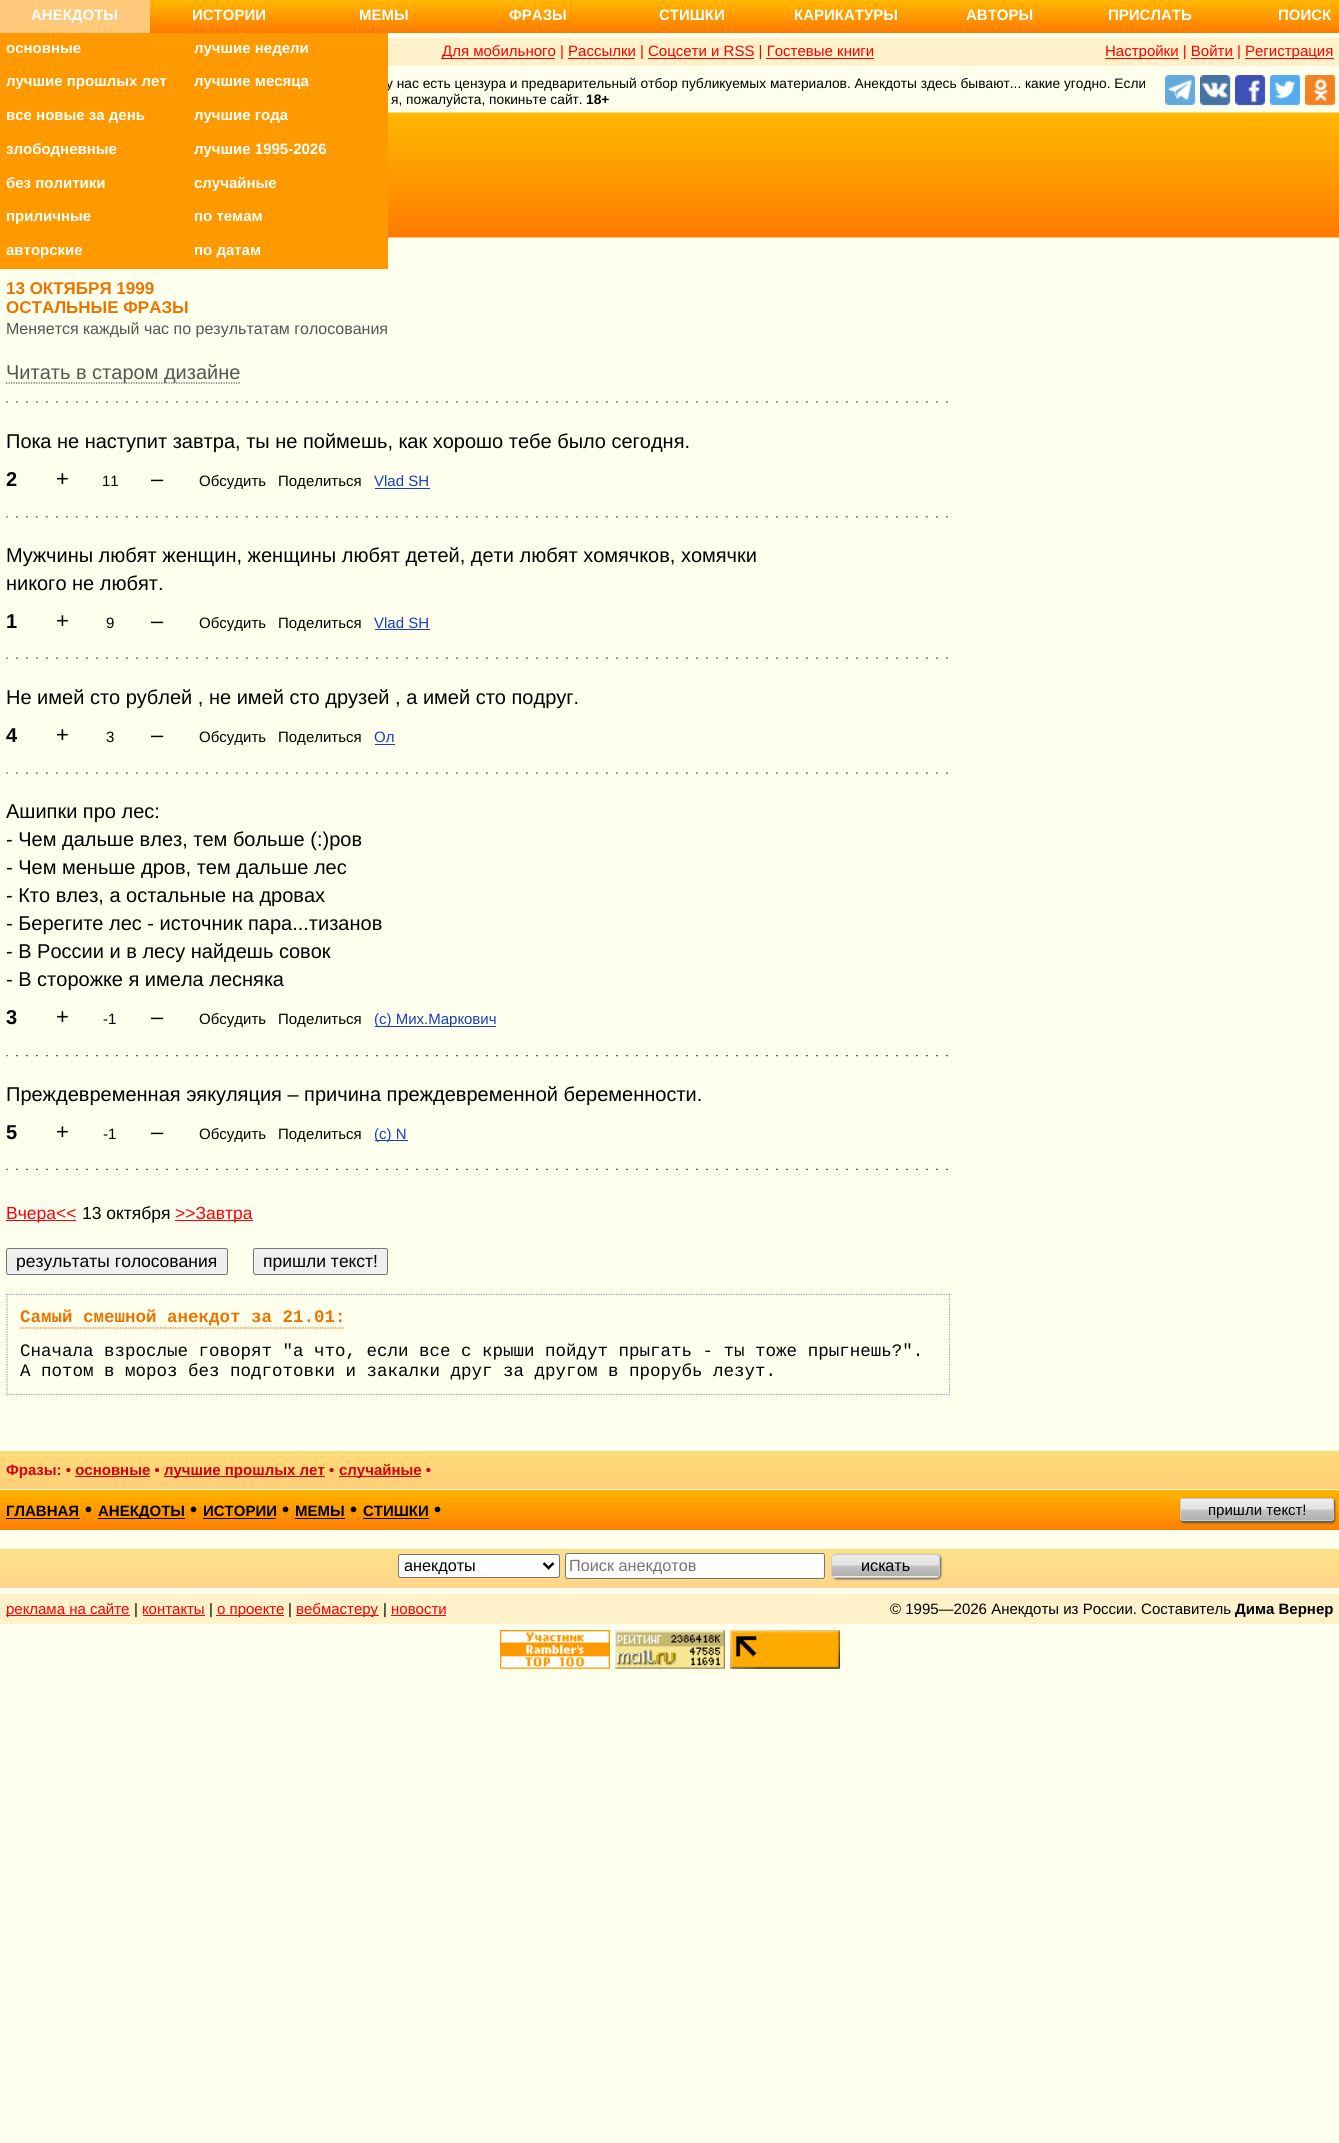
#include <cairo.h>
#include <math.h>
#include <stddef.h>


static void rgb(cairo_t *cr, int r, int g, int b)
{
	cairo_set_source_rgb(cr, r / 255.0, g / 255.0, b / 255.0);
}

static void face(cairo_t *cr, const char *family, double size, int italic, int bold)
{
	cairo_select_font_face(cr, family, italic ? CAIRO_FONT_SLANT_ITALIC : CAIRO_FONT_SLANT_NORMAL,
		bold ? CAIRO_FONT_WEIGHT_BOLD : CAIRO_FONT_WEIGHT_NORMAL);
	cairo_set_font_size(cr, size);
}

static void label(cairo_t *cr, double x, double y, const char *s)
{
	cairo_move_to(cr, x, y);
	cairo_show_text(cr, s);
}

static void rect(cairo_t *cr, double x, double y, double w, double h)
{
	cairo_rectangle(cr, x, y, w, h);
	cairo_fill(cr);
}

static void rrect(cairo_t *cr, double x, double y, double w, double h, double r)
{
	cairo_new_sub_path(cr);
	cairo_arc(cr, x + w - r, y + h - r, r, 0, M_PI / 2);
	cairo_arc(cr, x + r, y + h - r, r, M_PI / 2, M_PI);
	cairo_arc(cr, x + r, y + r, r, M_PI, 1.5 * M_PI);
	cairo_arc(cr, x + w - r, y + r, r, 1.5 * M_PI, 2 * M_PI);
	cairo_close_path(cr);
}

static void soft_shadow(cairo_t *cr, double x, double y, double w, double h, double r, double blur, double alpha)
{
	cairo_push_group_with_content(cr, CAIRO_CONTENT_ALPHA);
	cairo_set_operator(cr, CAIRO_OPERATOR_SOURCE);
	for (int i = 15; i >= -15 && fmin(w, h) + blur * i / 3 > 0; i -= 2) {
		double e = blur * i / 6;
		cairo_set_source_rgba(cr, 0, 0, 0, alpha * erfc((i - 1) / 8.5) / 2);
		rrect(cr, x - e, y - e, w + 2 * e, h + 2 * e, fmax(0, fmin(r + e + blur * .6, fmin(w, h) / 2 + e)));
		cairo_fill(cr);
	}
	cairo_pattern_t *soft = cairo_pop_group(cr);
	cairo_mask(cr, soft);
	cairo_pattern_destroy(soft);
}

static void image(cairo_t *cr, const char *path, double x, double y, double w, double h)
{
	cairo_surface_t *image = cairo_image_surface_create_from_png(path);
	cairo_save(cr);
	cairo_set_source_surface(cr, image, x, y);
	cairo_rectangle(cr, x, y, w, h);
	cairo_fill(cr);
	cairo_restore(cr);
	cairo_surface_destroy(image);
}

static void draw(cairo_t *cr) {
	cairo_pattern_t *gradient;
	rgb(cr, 255, 255, 238);
	cairo_paint(cr);
	gradient = cairo_pattern_create_linear(670, 0, 670, 33);
	cairo_pattern_add_color_stop_rgba(gradient, 0, 1, 0.722, 0, 1);
	cairo_pattern_add_color_stop_rgba(gradient, 1, 1, 0.478, 0, 1);
	cairo_set_source(cr, gradient);
	cairo_pattern_destroy(gradient);
	rect(cr, 150, 0, 1189, 33);
	rgb(cr, 255, 201, 124);
	rect(cr, 0, 0, 150, 33);
	face(cr, "Liberation Sans", 15, 0, 1);
	rgb(cr, 255, 255, 255);
	label(cr, 31, 20, "АНЕКДОТЫ");
	rgb(cr, 255, 153, 0);
	rect(cr, 0, 33, 188, 236);
	rgb(cr, 255, 255, 255);
	label(cr, 6, 53, "основные");
	label(cr, 6, 86, "лучшие прошлых лет");
	label(cr, 6, 120, "все новые за день");
	label(cr, 6, 154, "злободневные");
	label(cr, 6, 188, "без политики");
	label(cr, 6, 221, "приличные");
	label(cr, 6, 255, "авторские");
	face(cr, "Liberation Sans", 13.75, 0, 0);
	rgb(cr, 0, 0, 0);
	label(cr, 386, 88, "у нас есть цензура и предварительный отбор публикуемых материалов. Анекдоты здесь бывают... какие угодно. Если");
	rgb(cr, 255, 153, 0);
	rect(cr, 188, 33, 200, 236);
	face(cr, "Liberation Sans", 15, 0, 1);
	rgb(cr, 255, 255, 255);
	label(cr, 194, 53, "лучшие недели");
	label(cr, 194, 86, "лучшие месяца");
	label(cr, 194, 120, "лучшие года");
	label(cr, 194, 154, "лучшие 1995-2026");
	label(cr, 194, 188, "случайные");
	label(cr, 194, 221, "по темам");
	label(cr, 194, 255, "по датам");
	label(cr, 192, 20, "ИСТОРИИ");
	label(cr, 359, 20, "МЕМЫ");
	label(cr, 509, 20, "ФРАЗЫ");
	label(cr, 659, 20, "СТИШКИ");
	label(cr, 794, 20, "КАРИКАТУРЫ");
	label(cr, 966, 20, "АВТОРЫ");
	label(cr, 1108, 20, "ПРИСЛАТЬ");
	label(cr, 1278, 20, "ПОИСК");
	rgb(cr, 255, 242, 202);
	rect(cr, 388, 38, 951, 28);
	rgb(cr, 255, 0, 0);
	rect(cr, 441, 58, 114, 1);
	face(cr, "Liberation Sans", 15, 0, 0);
	label(cr, 442, 56, "Для мобильного | Рассылки |");
	rect(cr, 648, 58, 106, 1);
	label(cr, 648, 56, "Соцсети и RSS | Гостевые книги");
	rect(cr, 1105, 58, 74, 1);
	label(cr, 1105, 56, "Настройки | Войти |");
	rect(cr, 1245, 58, 89, 1);
	label(cr, 1245, 56, "Регистрация");
	rect(cr, 1191, 58, 43, 1);
	rect(cr, 568, 58, 67, 1);
	rect(cr, 766, 58, 108, 1);
	image(cr, "image0.png", 388, 112, 951, 126);
	face(cr, "Liberation Sans", 13.75, 0, 0);
	rgb(cr, 0, 0, 0);
	label(cr, 391, 104, "я, пожалуйста, покиньте сайт.");
	face(cr, "Liberation Sans", 13.75, 0, 1);
	label(cr, 586, 104, "18+");
	image(cr, "image1.png", 1165, 75, 31, 31);
	image(cr, "image2.png", 1200, 75, 31, 31);
	image(cr, "image3.png", 1235, 75, 31, 31);
	image(cr, "image4.png", 1270, 75, 31, 31);
	image(cr, "image5.png", 1305, 75, 31, 31);
	image(cr, "image6.png", 6, 401, 942, 2);
	face(cr, "Liberation Sans", 17, 0, 1);
	rgb(cr, 235, 116, 0);
	label(cr, 6, 294, "13 ОКТЯБРЯ 1999");
	label(cr, 6, 313, "ОСТАЛЬНЫЕ ФРАЗЫ");
	face(cr, "Liberation Sans", 16, 0, 0);
	rgb(cr, 85, 85, 85);
	label(cr, 6, 334, "Меняется каждый час по результатам голосования");
	cairo_new_path(cr);
	cairo_move_to(cr, 6, 383);
	cairo_line_to(cr, 241, 383);
	cairo_set_line_width(cr, 1.2);
	cairo_set_dash(cr, (double[]){1.25, 1.25}, 2, 0);
	cairo_stroke(cr);
	face(cr, "Liberation Sans", 20, 0, 0);
	label(cr, 6, 379, "Читать в старом дизайне");
	image(cr, "image6.png", 6, 516, 942, 2);
	rgb(cr, 0, 0, 0);
	label(cr, 6, 448, "Пока не наступит завтра, ты не поймешь, как хорошо тебе было сегодня.");
	face(cr, "Liberation Sans", 20, 0, 1);
	label(cr, 6, 486, "2");
	face(cr, "Liberation Sans", 22, 0, 0);
	label(cr, 56, 486, "+");
	face(cr, "Liberation Sans", 15, 0, 0);
	label(cr, 102, 486, "11");
	face(cr, "Liberation Sans", 22, 0, 0);
	label(cr, 151, 486, "–");
	face(cr, "Liberation Sans", 15, 0, 0);
	label(cr, 199, 486, "Обсудить");
	label(cr, 278, 486, "Поделиться");
	rgb(cr, 26, 61, 193);
	label(cr, 374, 486, "Vlad SH");
	rect(cr, 375, 488, 55, 1);
	image(cr, "image7.png", 6, 657, 942, 2);
	face(cr, "Liberation Sans", 20, 0, 0);
	rgb(cr, 0, 0, 0);
	label(cr, 6, 562, "Мужчины любят женщин, женщины любят детей, дети любят хомячков, хомячки");
	label(cr, 6, 590, "никого не любят.");
	face(cr, "Liberation Sans", 20, 0, 1);
	label(cr, 6, 628, "1");
	face(cr, "Liberation Sans", 22, 0, 0);
	label(cr, 56, 628, "+");
	face(cr, "Liberation Sans", 15, 0, 0);
	label(cr, 106, 628, "9");
	face(cr, "Liberation Sans", 22, 0, 0);
	label(cr, 151, 628, "–");
	face(cr, "Liberation Sans", 15, 0, 0);
	label(cr, 199, 628, "Обсудить");
	label(cr, 278, 628, "Поделиться");
	rgb(cr, 26, 61, 193);
	label(cr, 374, 628, "Vlad SH");
	rect(cr, 375, 629, 55, 1);
	image(cr, "image7.png", 6, 772, 942, 2);
	face(cr, "Liberation Sans", 20, 0, 0);
	rgb(cr, 0, 0, 0);
	label(cr, 6, 704, "Не имей сто рублей , не имей сто друзей , а имей сто подруг.");
	face(cr, "Liberation Sans", 20, 0, 1);
	label(cr, 6, 742, "4");
	face(cr, "Liberation Sans", 22, 0, 0);
	label(cr, 56, 742, "+");
	face(cr, "Liberation Sans", 15, 0, 0);
	label(cr, 106, 742, "3");
	face(cr, "Liberation Sans", 22, 0, 0);
	label(cr, 151, 742, "–");
	face(cr, "Liberation Sans", 15, 0, 0);
	label(cr, 199, 742, "Обсудить");
	label(cr, 278, 742, "Поделиться");
	rgb(cr, 26, 61, 193);
	label(cr, 374, 742, "Ол");
	rect(cr, 375, 744, 20, 1);
	image(cr, "image8.png", 6, 1055, 942, 2);
	face(cr, "Liberation Sans", 20, 0, 0);
	rgb(cr, 0, 0, 0);
	label(cr, 6, 818, "Ашипки про лес:");
	label(cr, 6, 846, "- Чем дальше влез, тем больше (:)ров");
	label(cr, 6, 874, "- Чем меньше дров, тем дальше лес");
	label(cr, 6, 902, "- Кто влез, а остальные на дровах");
	label(cr, 6, 930, "- Берегите лес - источник пара...тизанов");
	label(cr, 6, 958, "- В России и в лесу найдешь совок");
	label(cr, 6, 986, "- В сторожке я имела лесняка");
	face(cr, "Liberation Sans", 20, 0, 1);
	label(cr, 6, 1024, "3");
	face(cr, "Liberation Sans", 22, 0, 0);
	label(cr, 56, 1024, "+");
	face(cr, "Liberation Sans", 15, 0, 0);
	label(cr, 103, 1024, "-1");
	face(cr, "Liberation Sans", 22, 0, 0);
	label(cr, 151, 1024, "–");
	face(cr, "Liberation Sans", 15, 0, 0);
	label(cr, 199, 1024, "Обсудить");
	label(cr, 278, 1024, "Поделиться");
	rgb(cr, 26, 61, 193);
	rect(cr, 375, 1026, 121, 1);
	label(cr, 374, 1024, "(с) Мих.Маркович");
	image(cr, "image9.png", 6, 1168, 942, 2);
	face(cr, "Liberation Sans", 20, 0, 0);
	rgb(cr, 0, 0, 0);
	label(cr, 6, 1101, "Преждевременная эякуляция – причина преждевременной беременности.");
	face(cr, "Liberation Sans", 20, 0, 1);
	label(cr, 6, 1139, "5");
	face(cr, "Liberation Sans", 22, 0, 0);
	label(cr, 56, 1139, "+");
	face(cr, "Liberation Sans", 15, 0, 0);
	label(cr, 103, 1139, "-1");
	face(cr, "Liberation Sans", 22, 0, 0);
	label(cr, 151, 1139, "–");
	face(cr, "Liberation Sans", 15, 0, 0);
	label(cr, 199, 1139, "Обсудить");
	label(cr, 278, 1139, "Поделиться");
	rgb(cr, 26, 61, 193);
	rect(cr, 375, 1140, 33, 1);
	label(cr, 374, 1139, "(c) N");
	rgb(cr, 255, 0, 10);
	rect(cr, 6, 1220, 70, 1);
	face(cr, "Liberation Sans", 17.5, 0, 0);
	label(cr, 6, 1219, "Вчера<<");
	rgb(cr, 0, 0, 0);
	label(cr, 82, 1219, "13 октября");
	rgb(cr, 255, 0, 10);
	rect(cr, 175, 1220, 78, 1);
	label(cr, 175, 1219, ">>Завтра");
	rgb(cr, 239, 239, 239);
	rrect(cr, 6.5, 1248.5, 221, 26, 2);
	cairo_fill_preserve(cr);
	rgb(cr, 118, 118, 118);
	cairo_set_line_width(cr, 1);
	cairo_set_dash(cr, NULL, 0, 0);
	cairo_stroke(cr);
	rgb(cr, 0, 0, 0);
	label(cr, 16, 1267, "результаты голосования");
	rgb(cr, 239, 239, 239);
	rrect(cr, 253.5, 1248.5, 134, 26, 2);
	cairo_fill_preserve(cr);
	rgb(cr, 118, 118, 118);
	cairo_stroke(cr);
	rgb(cr, 0, 0, 0);
	label(cr, 263, 1267, "пришли текст!");
	cairo_new_path(cr);
	cairo_move_to(cr, 6, 1294.5);
	cairo_line_to(cr, 950, 1294.5);
	rgb(cr, 153, 153, 187);
	cairo_set_line_width(cr, 1.2);
	cairo_set_dash(cr, (double[]){1.25, 1.25}, 2, 0);
	cairo_stroke(cr);
	cairo_new_path(cr);
	cairo_move_to(cr, 949.5, 1294);
	cairo_line_to(cr, 949.5, 1395);
	cairo_stroke(cr);
	cairo_new_path(cr);
	cairo_move_to(cr, 6, 1394.5);
	cairo_line_to(cr, 950, 1394.5);
	cairo_stroke(cr);
	cairo_new_path(cr);
	cairo_move_to(cr, 7, 1294);
	cairo_line_to(cr, 7, 1395);
	cairo_stroke(cr);
	cairo_new_path(cr);
	cairo_move_to(cr, 20, 1328);
	cairo_line_to(cr, 345, 1328);
	rgb(cr, 235, 116, 0);
	cairo_stroke(cr);
	face(cr, "Liberation Mono", 17.5, 0, 1);
	label(cr, 20, 1322, "Самый смешной анекдот за 21.01:");
	face(cr, "Liberation Mono", 17.5, 0, 0);
	rgb(cr, 0, 0, 0);
	label(cr, 20, 1356, "Сначала взрослые говорят \"а что, если все с крыши пойдут прыгать - ты тоже прыгнешь?\".");
	label(cr, 20, 1376, "А потом в мороз без подготовки и закалки друг за другом в прорубь лезут.");
	gradient = cairo_pattern_create_linear(670, 1451, 670, 1489);
	cairo_pattern_add_color_stop_rgba(gradient, 0, 1, 0.859, 0.467, 1);
	cairo_pattern_add_color_stop_rgba(gradient, 1, 1, 0.812, 0.467, 1);
	cairo_set_source(cr, gradient);
	cairo_pattern_destroy(gradient);
	rect(cr, 0, 1451, 1339, 38);
	face(cr, "Liberation Sans", 15, 0, 1);
	rgb(cr, 212, 2, 13);
	label(cr, 6, 1475, "Фразы: • основные •");
	rect(cr, 164, 1476, 161, 1);
	label(cr, 164, 1475, "лучшие прошлых лет •");
	rect(cr, 339, 1476, 82, 1);
	label(cr, 339, 1475, "случайные •");
	rect(cr, 75, 1476, 75, 1);
	gradient = cairo_pattern_create_linear(670, 1490, 670, 1530);
	cairo_pattern_add_color_stop_rgba(gradient, 0, 1, 0.71, 0, 1);
	cairo_pattern_add_color_stop_rgba(gradient, 1, 1, 0.498, 0, 1);
	cairo_set_source(cr, gradient);
	cairo_pattern_destroy(gradient);
	rect(cr, 0, 1490, 1339, 40);
	rgb(cr, 0, 0, 0);
	label(cr, 6, 1516, "ГЛАВНАЯ");
	rect(cr, 6, 1518, 74, 1);
	face(cr, "Liberation Sans", 20, 0, 1);
	label(cr, 85, 1516, "•");
	rect(cr, 98, 1518, 87, 1);
	face(cr, "Liberation Sans", 15, 0, 1);
	label(cr, 98, 1516, "АНЕКДОТЫ");
	face(cr, "Liberation Sans", 20, 0, 1);
	label(cr, 190, 1516, "•");
	face(cr, "Liberation Sans", 15, 0, 1);
	label(cr, 203, 1516, "ИСТОРИИ");
	rect(cr, 203, 1518, 73, 1);
	face(cr, "Liberation Sans", 20, 0, 1);
	label(cr, 282, 1516, "•");
	face(cr, "Liberation Sans", 15, 0, 1);
	label(cr, 295, 1516, "МЕМЫ");
	rect(cr, 295, 1518, 50, 1);
	face(cr, "Liberation Sans", 20, 0, 1);
	label(cr, 350, 1516, "•");
	face(cr, "Liberation Sans", 15, 0, 1);
	label(cr, 363, 1516, "СТИШКИ");
	rect(cr, 363, 1518, 66, 1);
	face(cr, "Liberation Sans", 20, 0, 1);
	label(cr, 434, 1516, "•");
	rgb(cr, 85, 85, 85);
	soft_shadow(cr, 1181, 1499, 154, 24, 2.5, 1, 1);
	cairo_save(cr);
	rrect(cr, 1180, 1498, 154, 23, 2.5);
	cairo_clip(cr);
	gradient = cairo_pattern_create_linear(1257, 1499, 1257, 1520);
	cairo_pattern_add_color_stop_rgba(gradient, 0, 0.933, 0.933, 0.933, 1);
	cairo_pattern_add_color_stop_rgba(gradient, 0.49, 0.882, 0.882, 0.882, 1);
	cairo_pattern_add_color_stop_rgba(gradient, 0.51, 0.769, 0.769, 0.769, 1);
	cairo_pattern_add_color_stop_rgba(gradient, 1, 0.69, 0.69, 0.69, 1);
	cairo_set_source(cr, gradient);
	cairo_pattern_destroy(gradient);
	rect(cr, 1180, 1499, 154, 21);
	cairo_restore(cr);
	rrect(cr, 1180.5, 1498.5, 153, 22, 2);
	rgb(cr, 204, 204, 204);
	cairo_set_line_width(cr, 1);
	cairo_set_dash(cr, NULL, 0, 0);
	cairo_stroke(cr);
	face(cr, "Liberation Sans", 15, 0, 0);
	rgb(cr, 0, 0, 0);
	label(cr, 1208, 1515, "пришли текст!");
	gradient = cairo_pattern_create_linear(670, 1549, 670, 1588);
	cairo_pattern_add_color_stop_rgba(gradient, 0, 1, 0.882, 0.541, 1);
	cairo_pattern_add_color_stop_rgba(gradient, 1, 1, 0.835, 0.541, 1);
	cairo_set_source(cr, gradient);
	cairo_pattern_destroy(gradient);
	rect(cr, 0, 1549, 1339, 39);
	rgb(cr, 255, 255, 255);
	rrect(cr, 398.5, 1554.5, 161, 23, 2);
	cairo_fill_preserve(cr);
	rgb(cr, 118, 118, 118);
	cairo_stroke(cr);
	cairo_new_path(cr);
	cairo_move_to(cr, 543.5, 1563);
	cairo_line_to(cr, 548.5, 1568);
	cairo_line_to(cr, 553.5, 1563);
	rgb(cr, 0, 0, 0);
	cairo_set_line_width(cr, 2.5);
	cairo_stroke(cr);
	face(cr, "Liberation Sans", 16.25, 0, 0);
	label(cr, 404, 1571, "анекдоты");
	rgb(cr, 255, 255, 255);
	rrect(cr, 565.5, 1553.5, 259, 25, 2);
	cairo_fill_preserve(cr);
	rgb(cr, 118, 118, 118);
	cairo_set_line_width(cr, 1);
	cairo_stroke(cr);
	rgb(cr, 117, 117, 117);
	label(cr, 569, 1571, "Поиск анекдотов");
	rgb(cr, 85, 85, 85);
	soft_shadow(cr, 833, 1555, 108, 24, 4, 1, 1);
	cairo_save(cr);
	rrect(cr, 831, 1554, 109, 24, 4);
	cairo_clip(cr);
	gradient = cairo_pattern_create_linear(886, 1555, 886, 1576);
	cairo_pattern_add_color_stop_rgba(gradient, 0, 0.933, 0.933, 0.933, 1);
	cairo_pattern_add_color_stop_rgba(gradient, 0.49, 0.882, 0.882, 0.882, 1);
	cairo_pattern_add_color_stop_rgba(gradient, 0.51, 0.769, 0.769, 0.769, 1);
	cairo_pattern_add_color_stop_rgba(gradient, 1, 0.69, 0.69, 0.69, 1);
	cairo_set_source(cr, gradient);
	cairo_pattern_destroy(gradient);
	rect(cr, 831, 1555, 109, 21);
	gradient = cairo_pattern_create_linear(886, 1576, 886, 1598);
	cairo_pattern_add_color_stop_rgba(gradient, 0, 0.933, 0.933, 0.933, 1);
	cairo_pattern_add_color_stop_rgba(gradient, 0.49, 0.882, 0.882, 0.882, 1);
	cairo_pattern_add_color_stop_rgba(gradient, 0.51, 0.769, 0.769, 0.769, 1);
	cairo_pattern_add_color_stop_rgba(gradient, 1, 0.69, 0.69, 0.69, 1);
	cairo_set_source(cr, gradient);
	cairo_pattern_destroy(gradient);
	rect(cr, 831, 1576, 109, 2);
	cairo_restore(cr);
	rrect(cr, 831.5, 1554.5, 108, 23, 3.5);
	rgb(cr, 204, 204, 204);
	cairo_stroke(cr);
	rgb(cr, 0, 0, 0);
	label(cr, 861, 1571, "искать");
	rgb(cr, 255, 242, 202);
	rect(cr, 0, 1594, 1339, 30);
	rgb(cr, 255, 0, 0);
	rect(cr, 6, 1615, 124, 1);
	face(cr, "Liberation Sans", 15, 0, 0);
	label(cr, 6, 1614, "реклама на сайте");
	rgb(cr, 0, 0, 0);
	label(cr, 134, 1614, "|");
	rgb(cr, 255, 0, 0);
	label(cr, 142, 1614, "контакты");
	rect(cr, 143, 1615, 62, 1);
	rgb(cr, 0, 0, 0);
	label(cr, 209, 1614, "|");
	rgb(cr, 255, 0, 0);
	rect(cr, 216, 1615, 68, 1);
	label(cr, 217, 1614, "о проекте");
	rgb(cr, 0, 0, 0);
	label(cr, 288, 1614, "|");
	rgb(cr, 255, 0, 0);
	rect(cr, 296, 1615, 83, 1);
	label(cr, 296, 1614, "вебмастеру");
	rgb(cr, 0, 0, 0);
	label(cr, 383, 1614, "|");
	rgb(cr, 255, 0, 0);
	label(cr, 391, 1614, "новости");
	rect(cr, 391, 1615, 55, 1);
	rgb(cr, 0, 0, 0);
	label(cr, 890, 1614, "© 1995—2026 Анекдоты из России. Составитель");
	face(cr, "Liberation Sans", 15, 0, 1);
	label(cr, 1235, 1614, "Дима Вернер");
	image(cr, "image10.png", 500, 1630, 110, 39);
	image(cr, "image11.png", 615, 1630, 110, 39);
	image(cr, "image12.png", 730, 1630, 110, 39);
}

int main(void) {
	cairo_surface_t *surface = cairo_image_surface_create(CAIRO_FORMAT_RGB24, 1339, 2143);
	cairo_t *cr = cairo_create(surface);
	cairo_font_options_t *options = cairo_font_options_create();
	cairo_font_options_set_hint_metrics(options, CAIRO_HINT_METRICS_OFF);
	cairo_font_options_set_hint_style(options, CAIRO_HINT_STYLE_NONE);
	cairo_set_font_options(cr, options);
	cairo_set_miter_limit(cr, 4);
	draw(cr);
	cairo_surface_write_to_png(surface, "render.png");
	cairo_font_options_destroy(options);
	cairo_destroy(cr);
	cairo_surface_destroy(surface);
	return 0;
}
